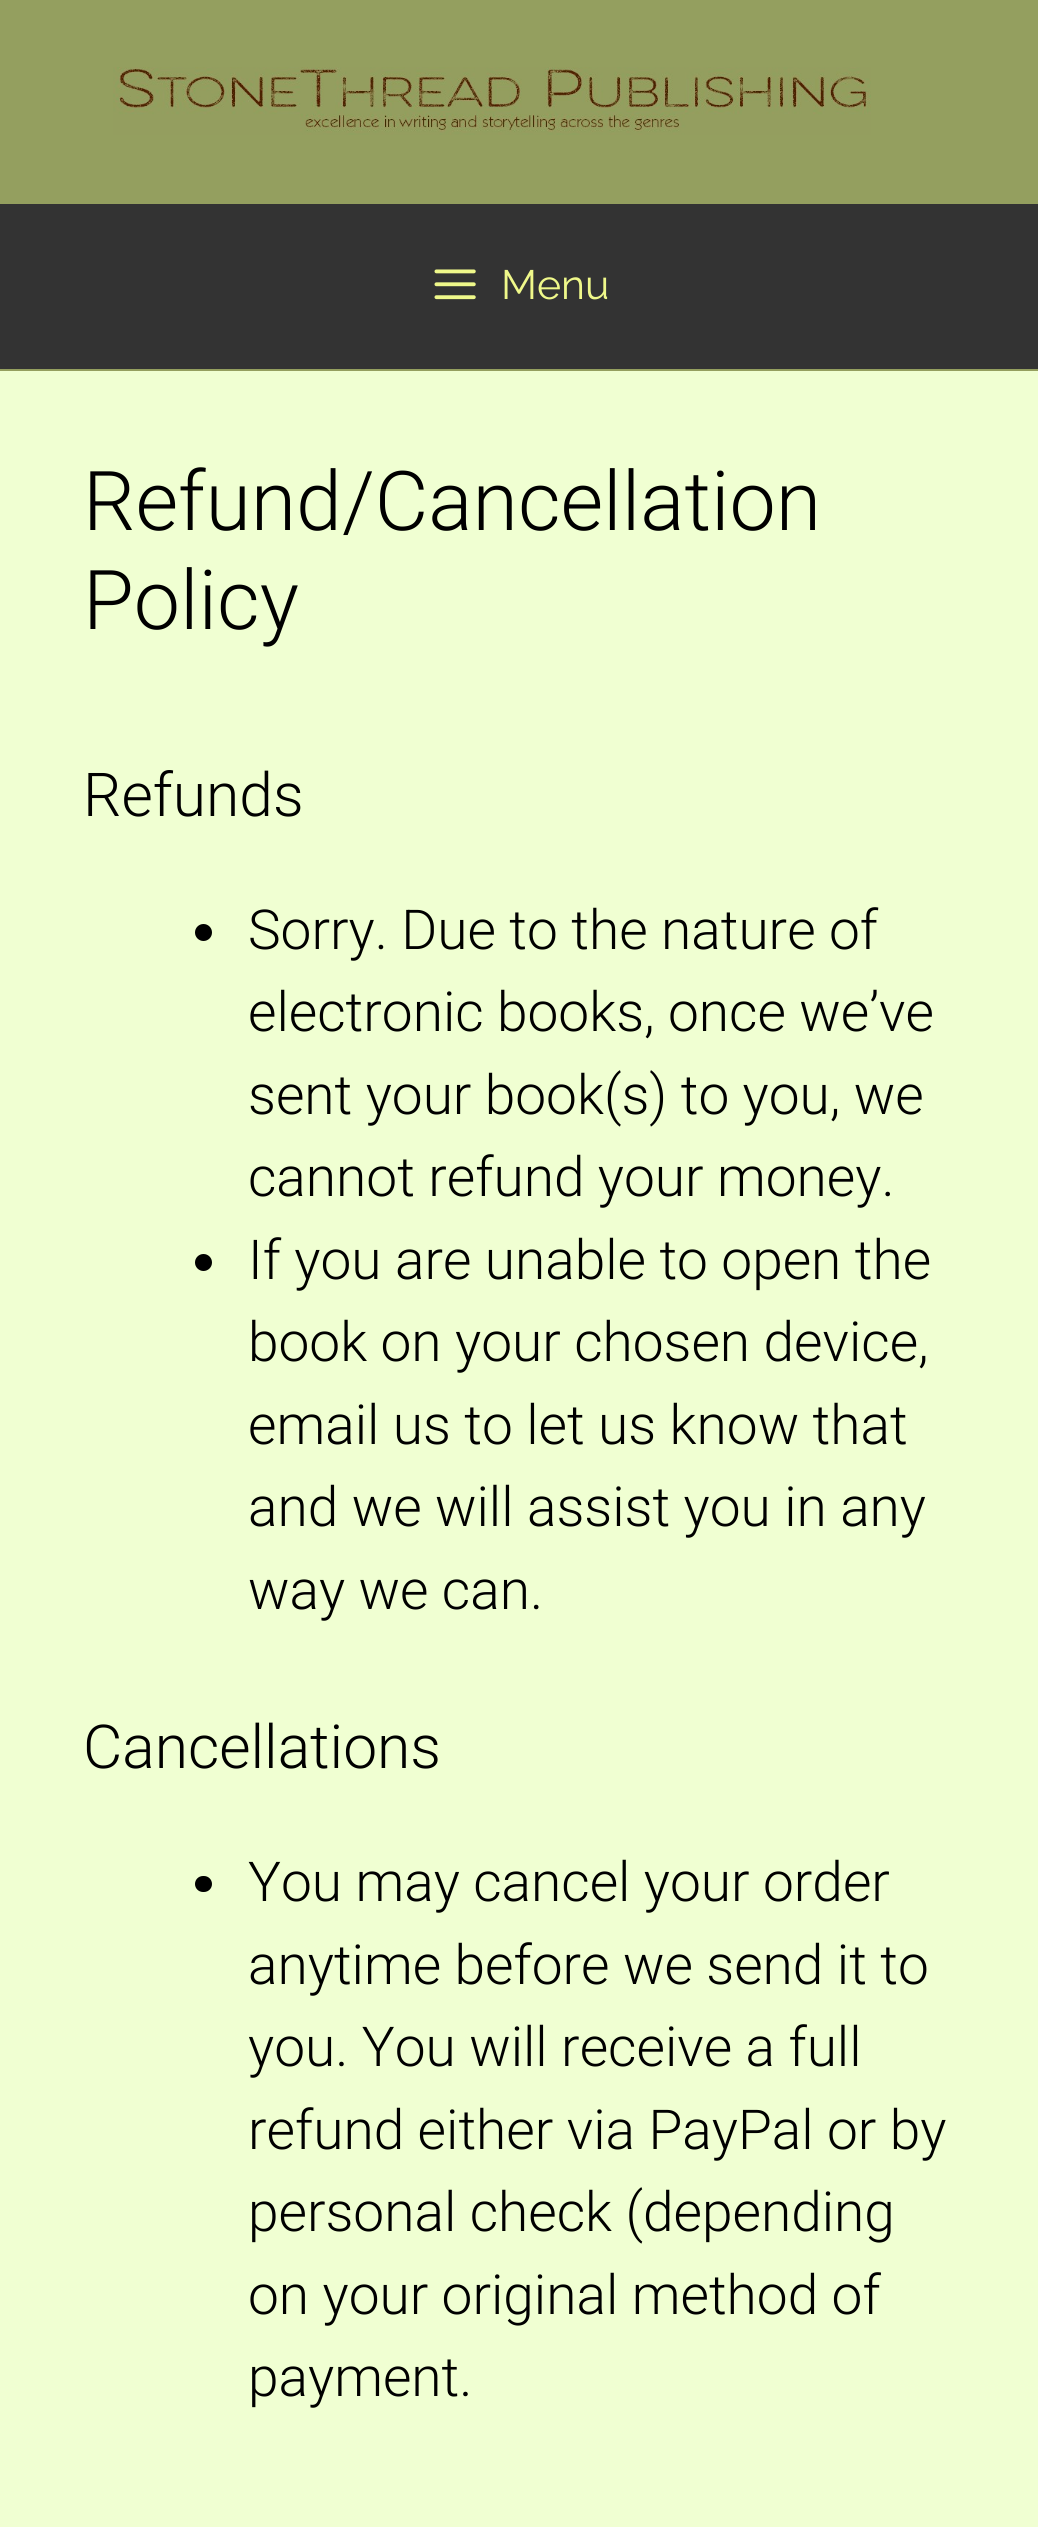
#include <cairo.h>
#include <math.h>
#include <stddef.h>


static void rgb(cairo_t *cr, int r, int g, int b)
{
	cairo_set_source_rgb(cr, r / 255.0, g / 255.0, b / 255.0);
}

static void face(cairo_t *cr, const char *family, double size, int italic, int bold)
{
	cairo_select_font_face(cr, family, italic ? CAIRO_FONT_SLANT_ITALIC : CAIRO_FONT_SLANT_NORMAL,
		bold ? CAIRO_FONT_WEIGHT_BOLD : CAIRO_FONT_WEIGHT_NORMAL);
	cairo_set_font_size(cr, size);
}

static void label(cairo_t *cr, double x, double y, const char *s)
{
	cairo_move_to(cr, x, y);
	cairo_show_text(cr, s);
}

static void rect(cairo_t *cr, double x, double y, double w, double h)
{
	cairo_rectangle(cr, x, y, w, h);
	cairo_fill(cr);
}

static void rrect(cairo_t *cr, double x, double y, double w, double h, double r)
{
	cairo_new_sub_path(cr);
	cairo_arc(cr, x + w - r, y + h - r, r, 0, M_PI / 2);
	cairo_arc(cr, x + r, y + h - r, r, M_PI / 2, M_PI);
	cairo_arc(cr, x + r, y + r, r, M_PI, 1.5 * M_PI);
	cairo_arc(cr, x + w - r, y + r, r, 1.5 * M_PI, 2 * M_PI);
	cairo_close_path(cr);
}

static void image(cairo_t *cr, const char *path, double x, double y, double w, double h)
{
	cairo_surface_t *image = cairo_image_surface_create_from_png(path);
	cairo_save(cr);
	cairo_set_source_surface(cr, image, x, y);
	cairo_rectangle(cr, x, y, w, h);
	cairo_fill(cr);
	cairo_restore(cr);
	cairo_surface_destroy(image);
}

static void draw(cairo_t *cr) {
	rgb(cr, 148, 159, 95);
	cairo_paint(cr);
	image(cr, "image0.png", 113, 67, 758, 68);
	rgb(cr, 51, 51, 51);
	rect(cr, 0, 204, 1038, 165);
	image(cr, "image1.png", 434, 269, 42, 31);
	face(cr, "Raleway", 41, 0, 0);
	rgb(cr, 239, 248, 138);
	label(cr, 501, 299, "Menu");
	rgb(cr, 240, 255, 210);
	rect(cr, 0, 371, 1038, 2156);
	face(cr, "Roboto Light", 82.5, 0, 0);
	rgb(cr, 0, 0, 0);
	label(cr, 83, 530, "Refund/Cancellation");
	label(cr, 83, 629, "Policy");
	face(cr, "Roboto Light", 60.5, 0, 0);
	label(cr, 83, 816, "Refunds");
	cairo_new_path(cr);
	cairo_arc(cr, 203.5, 932.5, 8.5, 0, 2 * M_PI);
	cairo_fill(cr);
	face(cr, "Roboto Light", 55, 0, 0);
	label(cr, 248, 949, "Sorry. Due to the nature of");
	label(cr, 248, 1031, "electronic books, once we’ve");
	label(cr, 248, 1114, "sent your book(s) to you, we");
	label(cr, 248, 1196, "cannot refund your money.");
	cairo_new_path(cr);
	cairo_arc(cr, 203.5, 1262.5, 8.5, 0, 2 * M_PI);
	cairo_fill(cr);
	label(cr, 248, 1279, "If you are unable to open the");
	label(cr, 248, 1361, "book on your chosen device,");
	label(cr, 248, 1444, "email us to let us know that");
	label(cr, 248, 1526, "and we will assist you in any");
	label(cr, 248, 1609, "way we can.");
	face(cr, "Roboto Light", 60.5, 0, 0);
	label(cr, 83, 1768, "Cancellations");
	rrect(cr, 195, 1876, 17, 16, 8);
	cairo_fill(cr);
	face(cr, "Roboto Light", 55, 0, 0);
	label(cr, 248, 1901, "You may cancel your order");
	label(cr, 248, 1984, "anytime before we send it to");
	label(cr, 248, 2066, "you. You will receive a full");
	label(cr, 248, 2149, "refund either via PayPal or by");
	label(cr, 248, 2231, "personal check (depending");
	label(cr, 248, 2314, "on your original method of");
	label(cr, 248, 2396, "payment.");
}

int main(void) {
	cairo_surface_t *surface = cairo_image_surface_create(CAIRO_FORMAT_RGB24, 1038, 2527);
	cairo_t *cr = cairo_create(surface);
	cairo_font_options_t *options = cairo_font_options_create();
	cairo_font_options_set_hint_metrics(options, CAIRO_HINT_METRICS_OFF);
	cairo_font_options_set_hint_style(options, CAIRO_HINT_STYLE_NONE);
	cairo_set_font_options(cr, options);
	cairo_set_miter_limit(cr, 4);
	draw(cr);
	cairo_surface_write_to_png(surface, "render.png");
	cairo_font_options_destroy(options);
	cairo_destroy(cr);
	cairo_surface_destroy(surface);
	return 0;
}
